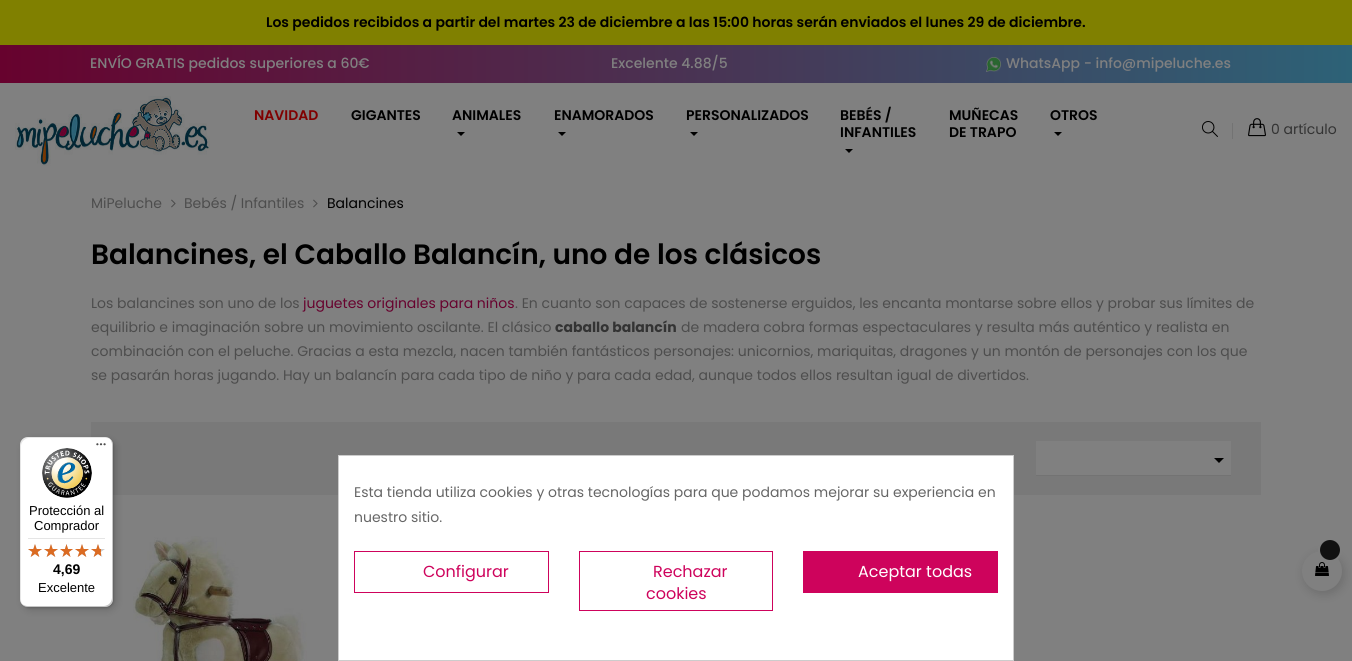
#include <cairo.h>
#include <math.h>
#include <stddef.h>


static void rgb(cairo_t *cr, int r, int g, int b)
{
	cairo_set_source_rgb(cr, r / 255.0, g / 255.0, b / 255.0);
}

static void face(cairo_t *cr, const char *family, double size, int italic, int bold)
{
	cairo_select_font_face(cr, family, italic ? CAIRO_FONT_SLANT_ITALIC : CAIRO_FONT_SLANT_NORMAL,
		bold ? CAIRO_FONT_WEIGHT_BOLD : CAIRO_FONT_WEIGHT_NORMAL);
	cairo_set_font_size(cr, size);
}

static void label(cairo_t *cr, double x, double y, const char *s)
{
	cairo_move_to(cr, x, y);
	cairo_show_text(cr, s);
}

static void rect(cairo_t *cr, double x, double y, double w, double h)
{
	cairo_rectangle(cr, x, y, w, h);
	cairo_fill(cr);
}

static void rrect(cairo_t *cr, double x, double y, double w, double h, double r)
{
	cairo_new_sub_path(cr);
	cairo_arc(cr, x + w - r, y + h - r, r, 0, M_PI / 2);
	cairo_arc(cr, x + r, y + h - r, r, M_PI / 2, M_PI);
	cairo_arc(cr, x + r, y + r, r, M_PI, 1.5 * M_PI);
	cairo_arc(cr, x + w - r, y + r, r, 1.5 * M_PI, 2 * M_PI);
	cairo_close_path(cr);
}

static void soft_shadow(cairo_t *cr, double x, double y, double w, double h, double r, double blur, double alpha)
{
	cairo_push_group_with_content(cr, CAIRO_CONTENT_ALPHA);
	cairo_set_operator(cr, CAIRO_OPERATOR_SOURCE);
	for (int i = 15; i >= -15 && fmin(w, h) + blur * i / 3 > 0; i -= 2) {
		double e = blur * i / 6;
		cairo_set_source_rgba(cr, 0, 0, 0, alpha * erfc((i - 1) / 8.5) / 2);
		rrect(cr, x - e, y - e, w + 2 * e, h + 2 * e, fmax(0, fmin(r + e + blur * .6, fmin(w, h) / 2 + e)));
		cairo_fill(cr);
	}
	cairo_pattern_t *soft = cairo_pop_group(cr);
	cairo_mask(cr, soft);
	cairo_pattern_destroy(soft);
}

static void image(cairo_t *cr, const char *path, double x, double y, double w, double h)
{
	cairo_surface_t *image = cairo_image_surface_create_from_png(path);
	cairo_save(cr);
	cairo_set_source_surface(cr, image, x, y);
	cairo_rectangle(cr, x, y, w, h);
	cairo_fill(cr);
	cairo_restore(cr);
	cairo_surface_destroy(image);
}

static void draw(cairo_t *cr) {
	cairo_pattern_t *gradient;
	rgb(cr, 128, 128, 128);
	cairo_paint(cr);
	rgb(cr, 128, 128, 0);
	rect(cr, 0, 0, 1352, 45);
	face(cr, "Poppins SemiBold", 14, 0, 0);
	rgb(cr, 0, 0, 0);
	label(cr, 266, 27, "Los pedidos recibidos a partir del martes 23 de diciembre a las 15:00 horas serán enviados el lunes 29 de diciembre.");
	gradient = cairo_pattern_create_linear(0, 64, 1352, 64);
	cairo_pattern_add_color_stop_rgba(gradient, 0, 0.404, 0.008, 0.18, 1);
	cairo_pattern_add_color_stop_rgba(gradient, 1, 0.176, 0.384, 0.467, 1);
	cairo_set_source(cr, gradient);
	cairo_pattern_destroy(gradient);
	rect(cr, 0, 45, 1352, 38);
	face(cr, "Poppins Medium", 14, 0, 0);
	rgb(cr, 128, 128, 128);
	label(cr, 90, 68, "ENVÍO GRATIS pedidos superiores a 60€");
	label(cr, 611, 68, "Excelente 4.88/5");
	image(cr, "image0.png", 986, 57, 15, 15);
	label(cr, 1006, 68, "WhatsApp - info@mipeluche.es");
	image(cr, "image1.png", 15, 96, 195, 70);
	face(cr, "Poppins SemiBold", 14, 0, 0);
	rgb(cr, 128, 0, 0);
	label(cr, 254, 120, "NAVIDAD");
	rgb(cr, 0, 0, 0);
	label(cr, 351, 120, "GIGANTES");
	label(cr, 452, 120, "ANIMALES");
	cairo_new_path(cr);
	cairo_move_to(cr, 457, 132);
	cairo_line_to(cr, 465, 132);
	cairo_line_to(cr, 461, 136);
	cairo_close_path(cr);
	cairo_fill(cr);
	label(cr, 554, 120, "ENAMORADOS");
	cairo_new_path(cr);
	cairo_move_to(cr, 558, 132);
	cairo_line_to(cr, 566, 132);
	cairo_line_to(cr, 562, 136);
	cairo_close_path(cr);
	cairo_fill(cr);
	label(cr, 686, 120, "PERSONALIZADOS");
	cairo_new_path(cr);
	cairo_move_to(cr, 690, 132);
	cairo_line_to(cr, 698, 132);
	cairo_line_to(cr, 694, 136);
	cairo_close_path(cr);
	cairo_fill(cr);
	label(cr, 840, 120, "BEBÉS /");
	label(cr, 840, 137, "INFANTILES");
	cairo_new_path(cr);
	cairo_move_to(cr, 845, 149);
	cairo_line_to(cr, 853, 149);
	cairo_line_to(cr, 849, 153);
	cairo_close_path(cr);
	cairo_fill(cr);
	label(cr, 949, 120, "MUÑECAS");
	label(cr, 949, 137, "DE TRAPO");
	label(cr, 1050, 120, "OTROS");
	cairo_new_path(cr);
	cairo_move_to(cr, 1054, 132);
	cairo_line_to(cr, 1062, 132);
	cairo_line_to(cr, 1058, 136);
	cairo_close_path(cr);
	cairo_fill(cr);
	image(cr, "image2.png", 1202, 121, 16, 16);
	rgb(cr, 115, 115, 115);
	rect(cr, 1232, 123, 1, 16);
	image(cr, "image3.png", 1248, 118, 18, 19);
	face(cr, "Poppins", 14, 0, 0);
	rgb(cr, 51, 51, 51);
	label(cr, 1271, 134, "0 artículo");
	rgb(cr, 77, 77, 77);
	label(cr, 91, 208, "MiPeluche");
	image(cr, "image4.png", 171, 199, 5, 9);
	label(cr, 184, 208, "Bebés / Infantiles");
	image(cr, "image4.png", 313, 199, 5, 9);
	rgb(cr, 0, 0, 0);
	label(cr, 327, 208, "Balancines");
	face(cr, "Poppins SemiBold", 28, 0, 0);
	label(cr, 91, 264, "Balancines, el Caballo Balancín, uno de los clásicos");
	face(cr, "Poppins", 14, 0, 0);
	rgb(cr, 77, 77, 77);
	label(cr, 91, 308, "Los balancines son uno de los");
	rgb(cr, 103, 2, 46);
	label(cr, 303, 308, "juguetes originales para niños");
	rgb(cr, 77, 77, 77);
	label(cr, 515, 308, ". En cuanto son capaces de sostenerse erguidos, les encanta montarse sobre ellos y probar sus límites de");
	label(cr, 91, 332, "equilibrio e imaginación sobre un movimiento oscilante. El clásico");
	face(cr, "Poppins", 14, 0, 1);
	rgb(cr, 51, 51, 51);
	label(cr, 555, 332, "caballo balancín");
	face(cr, "Poppins", 14, 0, 0);
	rgb(cr, 77, 77, 77);
	label(cr, 681, 332, "de madera cobra formas espectaculares y resulta más auténtico y realista en");
	label(cr, 91, 356, "combinación con el peluche. Gracias a esta mezcla, nacen también fantásticos personajes: unicornios, mariquitas, dragones y un montón de personajes con los que");
	label(cr, 91, 380, "se pasarán horas jugando. Hay un balancín para cada tipo de niño y para cada edad, aunque todos ellos resultan igual de divertidos.");
	rgb(cr, 121, 121, 121);
	rect(cr, 91, 422, 1170, 73);
	rgb(cr, 128, 128, 128);
	rect(cr, 1036, 441, 195, 34);
	rgb(cr, 115, 115, 115);
	rect(cr, 1036, 475, 195, 1);
	rgb(cr, 0, 0, 0);
	cairo_new_path(cr);
	cairo_move_to(cr, 1214, 458);
	cairo_line_to(cr, 1224, 458);
	cairo_line_to(cr, 1219, 463);
	cairo_close_path(cr);
	cairo_fill(cr);
	image(cr, "image5.png", 133, 536, 174, 125);
	rgb(cr, 0, 0, 0);
	soft_shadow(cr, 23, 440, 93, 170, 8, 4, 0.15);
	soft_shadow(cr, 21, 438, 93, 170, 8, 1, 0.15);
	rgb(cr, 255, 255, 255);
	rrect(cr, 20, 437, 93, 170, 8);
	cairo_fill(cr);
	cairo_set_source_rgba(cr, 0, 0, 0, 0.1);
	cairo_new_path(cr);
	cairo_move_to(cr, 29, 438);
	cairo_line_to(cr, 106, 438);
	cairo_curve_to(cr, 108, 438, 110, 439, 112, 441);
	cairo_curve_to(cr, 110, 439, 108, 437, 105, 437);
	cairo_line_to(cr, 28, 437);
	cairo_curve_to(cr, 24, 437, 20, 441, 20, 445);
	cairo_line_to(cr, 20, 599);
	cairo_curve_to(cr, 20, 602, 22, 604, 24, 606);
	cairo_curve_to(cr, 22, 604, 21, 602, 21, 600);
	cairo_line_to(cr, 21, 446);
	cairo_curve_to(cr, 21, 442, 25, 438, 29, 438);
	cairo_close_path(cr);
	cairo_fill(cr);
	cairo_set_source_rgba(cr, 0, 0, 0, 0.2);
	cairo_new_path(cr);
	cairo_move_to(cr, 21, 603);
	cairo_curve_to(cr, 23, 605, 25, 607, 28, 607);
	cairo_line_to(cr, 105, 607);
	cairo_curve_to(cr, 109, 607, 113, 603, 113, 599);
	cairo_line_to(cr, 113, 445);
	cairo_curve_to(cr, 113, 442, 111, 440, 109, 438);
	cairo_curve_to(cr, 111, 440, 112, 442, 112, 444);
	cairo_line_to(cr, 112, 598);
	cairo_curve_to(cr, 112, 602, 108, 606, 104, 606);
	cairo_line_to(cr, 27, 606);
	cairo_curve_to(cr, 25, 606, 23, 605, 21, 603);
	cairo_close_path(cr);
	cairo_fill(cr);
	cairo_set_source_rgba(cr, 0.196, 0.196, 0.196, 0.2);
	cairo_new_path(cr);
	cairo_move_to(cr, 22, 604);
	cairo_curve_to(cr, 23, 606, 26, 607, 28, 607);
	cairo_line_to(cr, 105, 607);
	cairo_curve_to(cr, 109, 607, 113, 603, 113, 599);
	cairo_line_to(cr, 113, 445);
	cairo_curve_to(cr, 113, 443, 112, 440, 110, 439);
	cairo_curve_to(cr, 111, 440, 112, 442, 112, 444);
	cairo_line_to(cr, 112, 598);
	cairo_curve_to(cr, 112, 603, 109, 606, 104, 606);
	cairo_line_to(cr, 27, 606);
	cairo_curve_to(cr, 25, 606, 23, 605, 22, 604);
	cairo_close_path(cr);
	cairo_fill(cr);
	cairo_set_source_rgba(cr, 1, 1, 1, 0.3);
	cairo_new_path(cr);
	cairo_move_to(cr, 20, 598);
	cairo_line_to(cr, 20, 599);
	cairo_curve_to(cr, 20, 603, 24, 607, 28, 607);
	cairo_line_to(cr, 105, 607);
	cairo_curve_to(cr, 109, 607, 113, 603, 113, 599);
	cairo_line_to(cr, 113, 445);
	cairo_curve_to(cr, 113, 443, 112, 440, 110, 439);
	cairo_curve_to(cr, 111, 440, 112, 442, 112, 444);
	cairo_line_to(cr, 112, 598);
	cairo_curve_to(cr, 112, 603, 109, 606, 104, 606);
	cairo_line_to(cr, 28, 606);
	cairo_curve_to(cr, 23, 606, 20, 603, 20, 598);
	cairo_close_path(cr);
	cairo_fill(cr);
	image(cr, "image6.png", 96, 443, 10, 3);
	image(cr, "image7.png", 42, 448, 50, 50);
	face(cr, "Liberation Sans", 13, 0, 0);
	rgb(cr, 0, 0, 0);
	label(cr, 29, 515, "Protección al");
	label(cr, 34, 530, "Comprador");
	rgb(cr, 229, 229, 229);
	rect(cr, 28, 538, 77, 1);
	image(cr, "image8.png", 28, 544, 14, 13);
	image(cr, "image8.png", 44, 544, 14, 13);
	image(cr, "image9.png", 60, 544, 13, 13);
	image(cr, "image8.png", 75, 544, 14, 13);
	image(cr, "image8.png", 91, 544, 14, 13);
	image(cr, "image10.png", 28, 544, 14, 13);
	image(cr, "image10.png", 44, 544, 14, 13);
	image(cr, "image11.png", 60, 544, 13, 13);
	image(cr, "image10.png", 75, 544, 14, 13);
	image(cr, "image12.png", 91, 544, 10, 13);
	face(cr, "Liberation Sans", 14, 0, 1);
	rgb(cr, 0, 0, 0);
	label(cr, 53, 574, "4,69");
	face(cr, "Liberation Sans", 13, 0, 0);
	label(cr, 38, 592, "Excelente");
	rgb(cr, 255, 255, 255);
	cairo_rectangle(cr, 338.5, 455.5, 675, 205);
	cairo_fill_preserve(cr);
	rgb(cr, 204, 204, 204);
	cairo_set_line_width(cr, 1);
	cairo_stroke(cr);
	face(cr, "Poppins", 14, 0, 0);
	rgb(cr, 102, 102, 102);
	label(cr, 354, 497, "Esta tienda utiliza cookies y otras tecnologías para que podamos mejorar su experiencia en");
	label(cr, 354, 522, "nuestro sitio.");
	cairo_rectangle(cr, 354.5, 551.5, 194, 41);
	rgb(cr, 206, 3, 92);
	cairo_stroke(cr);
	face(cr, "Poppins", 16, 0, 0);
	label(cr, 423, 577, "Configurar");
	cairo_rectangle(cr, 579.5, 551.5, 193, 59);
	cairo_stroke(cr);
	label(cr, 653, 577, "Rechazar");
	label(cr, 646, 599, "cookies");
	rect(cr, 803, 551, 195, 42);
	rgb(cr, 255, 255, 255);
	label(cr, 858, 577, "Aceptar todas");
	rgb(cr, 0, 0, 0);
	soft_shadow(cr, 1304, 554, 40, 40, 20, 5, 0.15);
	rgb(cr, 128, 128, 128);
	cairo_arc(cr, 1322, 571, 20, 0, 2 * M_PI);
	cairo_fill(cr);
	image(cr, "image13.png", 1315, 562, 14, 14);
	cairo_arc(cr, 1330, 550, 11, 0, 2 * M_PI);
	cairo_set_line_width(cr, 2);
	cairo_stroke(cr);
	rgb(cr, 17, 17, 17);
	cairo_arc(cr, 1330, 550, 10, 0, 2 * M_PI);
	cairo_fill(cr);
}

int main(void) {
	cairo_surface_t *surface = cairo_image_surface_create(CAIRO_FORMAT_RGB24, 1352, 661);
	cairo_t *cr = cairo_create(surface);
	cairo_font_options_t *options = cairo_font_options_create();
	cairo_font_options_set_hint_metrics(options, CAIRO_HINT_METRICS_OFF);
	cairo_font_options_set_hint_style(options, CAIRO_HINT_STYLE_NONE);
	cairo_set_font_options(cr, options);
	cairo_set_miter_limit(cr, 4);
	draw(cr);
	cairo_surface_write_to_png(surface, "render.png");
	cairo_font_options_destroy(options);
	cairo_destroy(cr);
	cairo_surface_destroy(surface);
	return 0;
}
